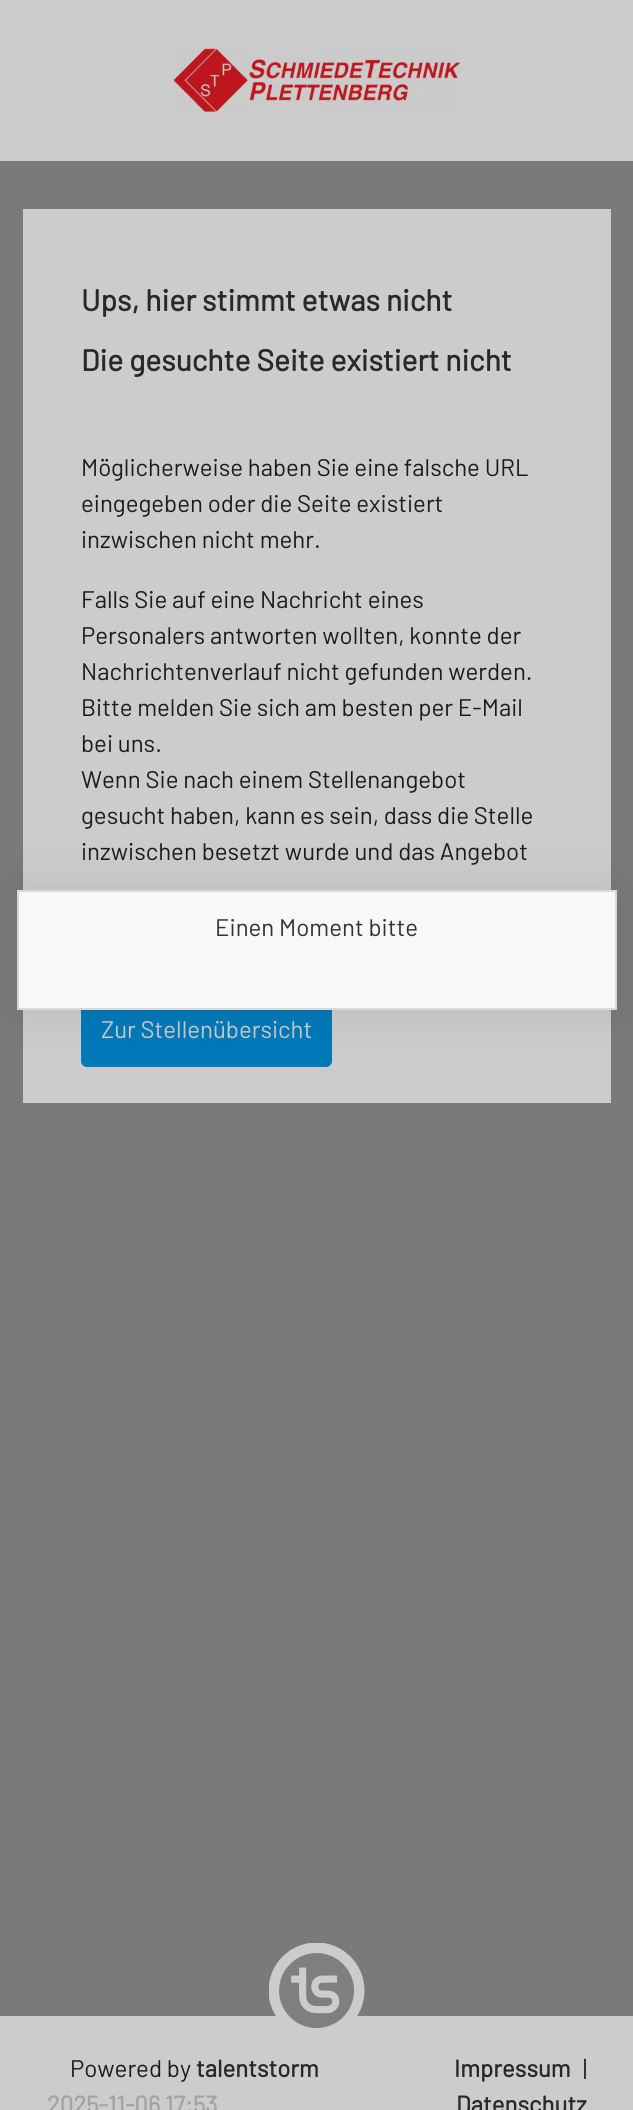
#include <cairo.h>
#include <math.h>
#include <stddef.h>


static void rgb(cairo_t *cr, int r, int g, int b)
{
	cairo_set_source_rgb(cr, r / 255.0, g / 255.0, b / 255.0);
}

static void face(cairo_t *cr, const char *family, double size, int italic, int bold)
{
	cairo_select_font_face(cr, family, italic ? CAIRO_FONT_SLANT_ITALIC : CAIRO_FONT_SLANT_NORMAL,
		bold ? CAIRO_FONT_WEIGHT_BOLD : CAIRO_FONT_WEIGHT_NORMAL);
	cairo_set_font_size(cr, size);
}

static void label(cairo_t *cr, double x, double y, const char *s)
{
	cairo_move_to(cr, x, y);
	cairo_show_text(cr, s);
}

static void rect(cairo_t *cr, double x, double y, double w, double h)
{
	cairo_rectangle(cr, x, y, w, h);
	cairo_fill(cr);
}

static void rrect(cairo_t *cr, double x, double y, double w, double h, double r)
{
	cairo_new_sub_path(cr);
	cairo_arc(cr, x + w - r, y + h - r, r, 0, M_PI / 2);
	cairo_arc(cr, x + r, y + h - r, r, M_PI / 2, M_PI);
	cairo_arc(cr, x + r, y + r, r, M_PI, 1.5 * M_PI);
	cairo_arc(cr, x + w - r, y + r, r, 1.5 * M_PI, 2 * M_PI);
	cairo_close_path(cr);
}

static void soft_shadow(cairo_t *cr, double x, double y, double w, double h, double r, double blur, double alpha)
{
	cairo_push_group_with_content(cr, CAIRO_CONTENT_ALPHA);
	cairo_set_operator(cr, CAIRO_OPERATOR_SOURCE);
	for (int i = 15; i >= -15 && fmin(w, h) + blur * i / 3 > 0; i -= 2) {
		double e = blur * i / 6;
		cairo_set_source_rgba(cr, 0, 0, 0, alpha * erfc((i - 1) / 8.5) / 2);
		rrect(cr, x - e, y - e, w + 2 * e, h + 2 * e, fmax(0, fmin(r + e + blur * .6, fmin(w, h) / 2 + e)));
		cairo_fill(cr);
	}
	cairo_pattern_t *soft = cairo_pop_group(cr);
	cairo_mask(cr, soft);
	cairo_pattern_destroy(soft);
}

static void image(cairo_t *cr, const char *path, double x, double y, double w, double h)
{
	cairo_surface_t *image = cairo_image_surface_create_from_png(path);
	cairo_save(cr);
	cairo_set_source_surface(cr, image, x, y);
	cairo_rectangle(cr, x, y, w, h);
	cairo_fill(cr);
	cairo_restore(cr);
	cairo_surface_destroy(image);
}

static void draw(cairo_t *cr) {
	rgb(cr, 122, 122, 122);
	cairo_paint(cr);
	rgb(cr, 204, 204, 204);
	rect(cr, 0, 0, 633, 161);
	image(cr, "image0.png", 173, 48, 288, 65);
	rect(cr, 23, 209, 588, 894);
	face(cr, "Barlow", 30, 0, 1);
	rgb(cr, 41, 41, 41);
	label(cr, 81, 311, "Ups, hier stimmt etwas nicht");
	label(cr, 81, 371, "Die gesuchte Seite existiert nicht");
	face(cr, "Barlow", 24, 0, 0);
	rgb(cr, 27, 27, 27);
	label(cr, 81, 476, "Möglicherweise haben Sie eine falsche URL");
	label(cr, 81, 512, "eingegeben oder die Seite existiert");
	label(cr, 81, 548, "inzwischen nicht mehr.");
	label(cr, 81, 608, "Falls Sie auf eine Nachricht eines");
	label(cr, 81, 644, "Personalers antworten wollten, konnte der");
	label(cr, 81, 680, "Nachrichtenverlauf nicht gefunden werden.");
	label(cr, 81, 716, "Bitte melden Sie sich am besten per E-Mail");
	label(cr, 81, 752, "bei uns.");
	label(cr, 81, 788, "Wenn Sie nach einem Stellenangebot");
	label(cr, 81, 824, "gesucht haben, kann es sein, dass die Stelle");
	label(cr, 81, 860, "inzwischen besetzt wurde und das Angebot");
	rgb(cr, 0, 121, 184);
	rrect(cr, 82, 1002, 249, 64, 5);
	cairo_fill_preserve(cr);
	cairo_stroke(cr);
	rgb(cr, 204, 204, 204);
	label(cr, 101, 1038, "Zur Stellenübersicht");
	rect(cr, 0, 2016, 633, 94);
	image(cr, "image1.png", 269, 1943, 96, 86);
	rgb(cr, 27, 27, 27);
	label(cr, 70, 2077, "Powered by");
	face(cr, "Barlow", 24, 0, 1);
	rgb(cr, 41, 41, 41);
	label(cr, 196, 2077, "talentstorm");
	label(cr, 454, 2077, "Impressum");
	face(cr, "Barlow", 24, 0, 0);
	rgb(cr, 27, 27, 27);
	label(cr, 583, 2077, "|");
	face(cr, "Barlow", 24, 0, 1);
	rgb(cr, 41, 41, 41);
	label(cr, 456, 2113, "Datenschutz");
	rgb(cr, 163, 163, 163);
	label(cr, 47, 2113, "2025-11-06 17:53");
	rgb(cr, 0, 0, 0);
	soft_shadow(cr, 17, 890, 600, 120, 0, 24, 0.1);
	rgb(cr, 248, 248, 248);
	cairo_rectangle(cr, 18, 891, 598, 118);
	cairo_fill_preserve(cr);
	rgb(cr, 216, 216, 216);
	cairo_stroke(cr);
	face(cr, "Barlow", 24, 0, 0);
	rgb(cr, 51, 51, 51);
	label(cr, 215, 936, "Einen Moment bitte");
}

int main(void) {
	cairo_surface_t *surface = cairo_image_surface_create(CAIRO_FORMAT_RGB24, 633, 2110);
	cairo_t *cr = cairo_create(surface);
	cairo_font_options_t *options = cairo_font_options_create();
	cairo_font_options_set_hint_metrics(options, CAIRO_HINT_METRICS_OFF);
	cairo_font_options_set_hint_style(options, CAIRO_HINT_STYLE_NONE);
	cairo_set_font_options(cr, options);
	cairo_set_miter_limit(cr, 4);
	draw(cr);
	cairo_surface_write_to_png(surface, "render.png");
	cairo_font_options_destroy(options);
	cairo_destroy(cr);
	cairo_surface_destroy(surface);
	return 0;
}
